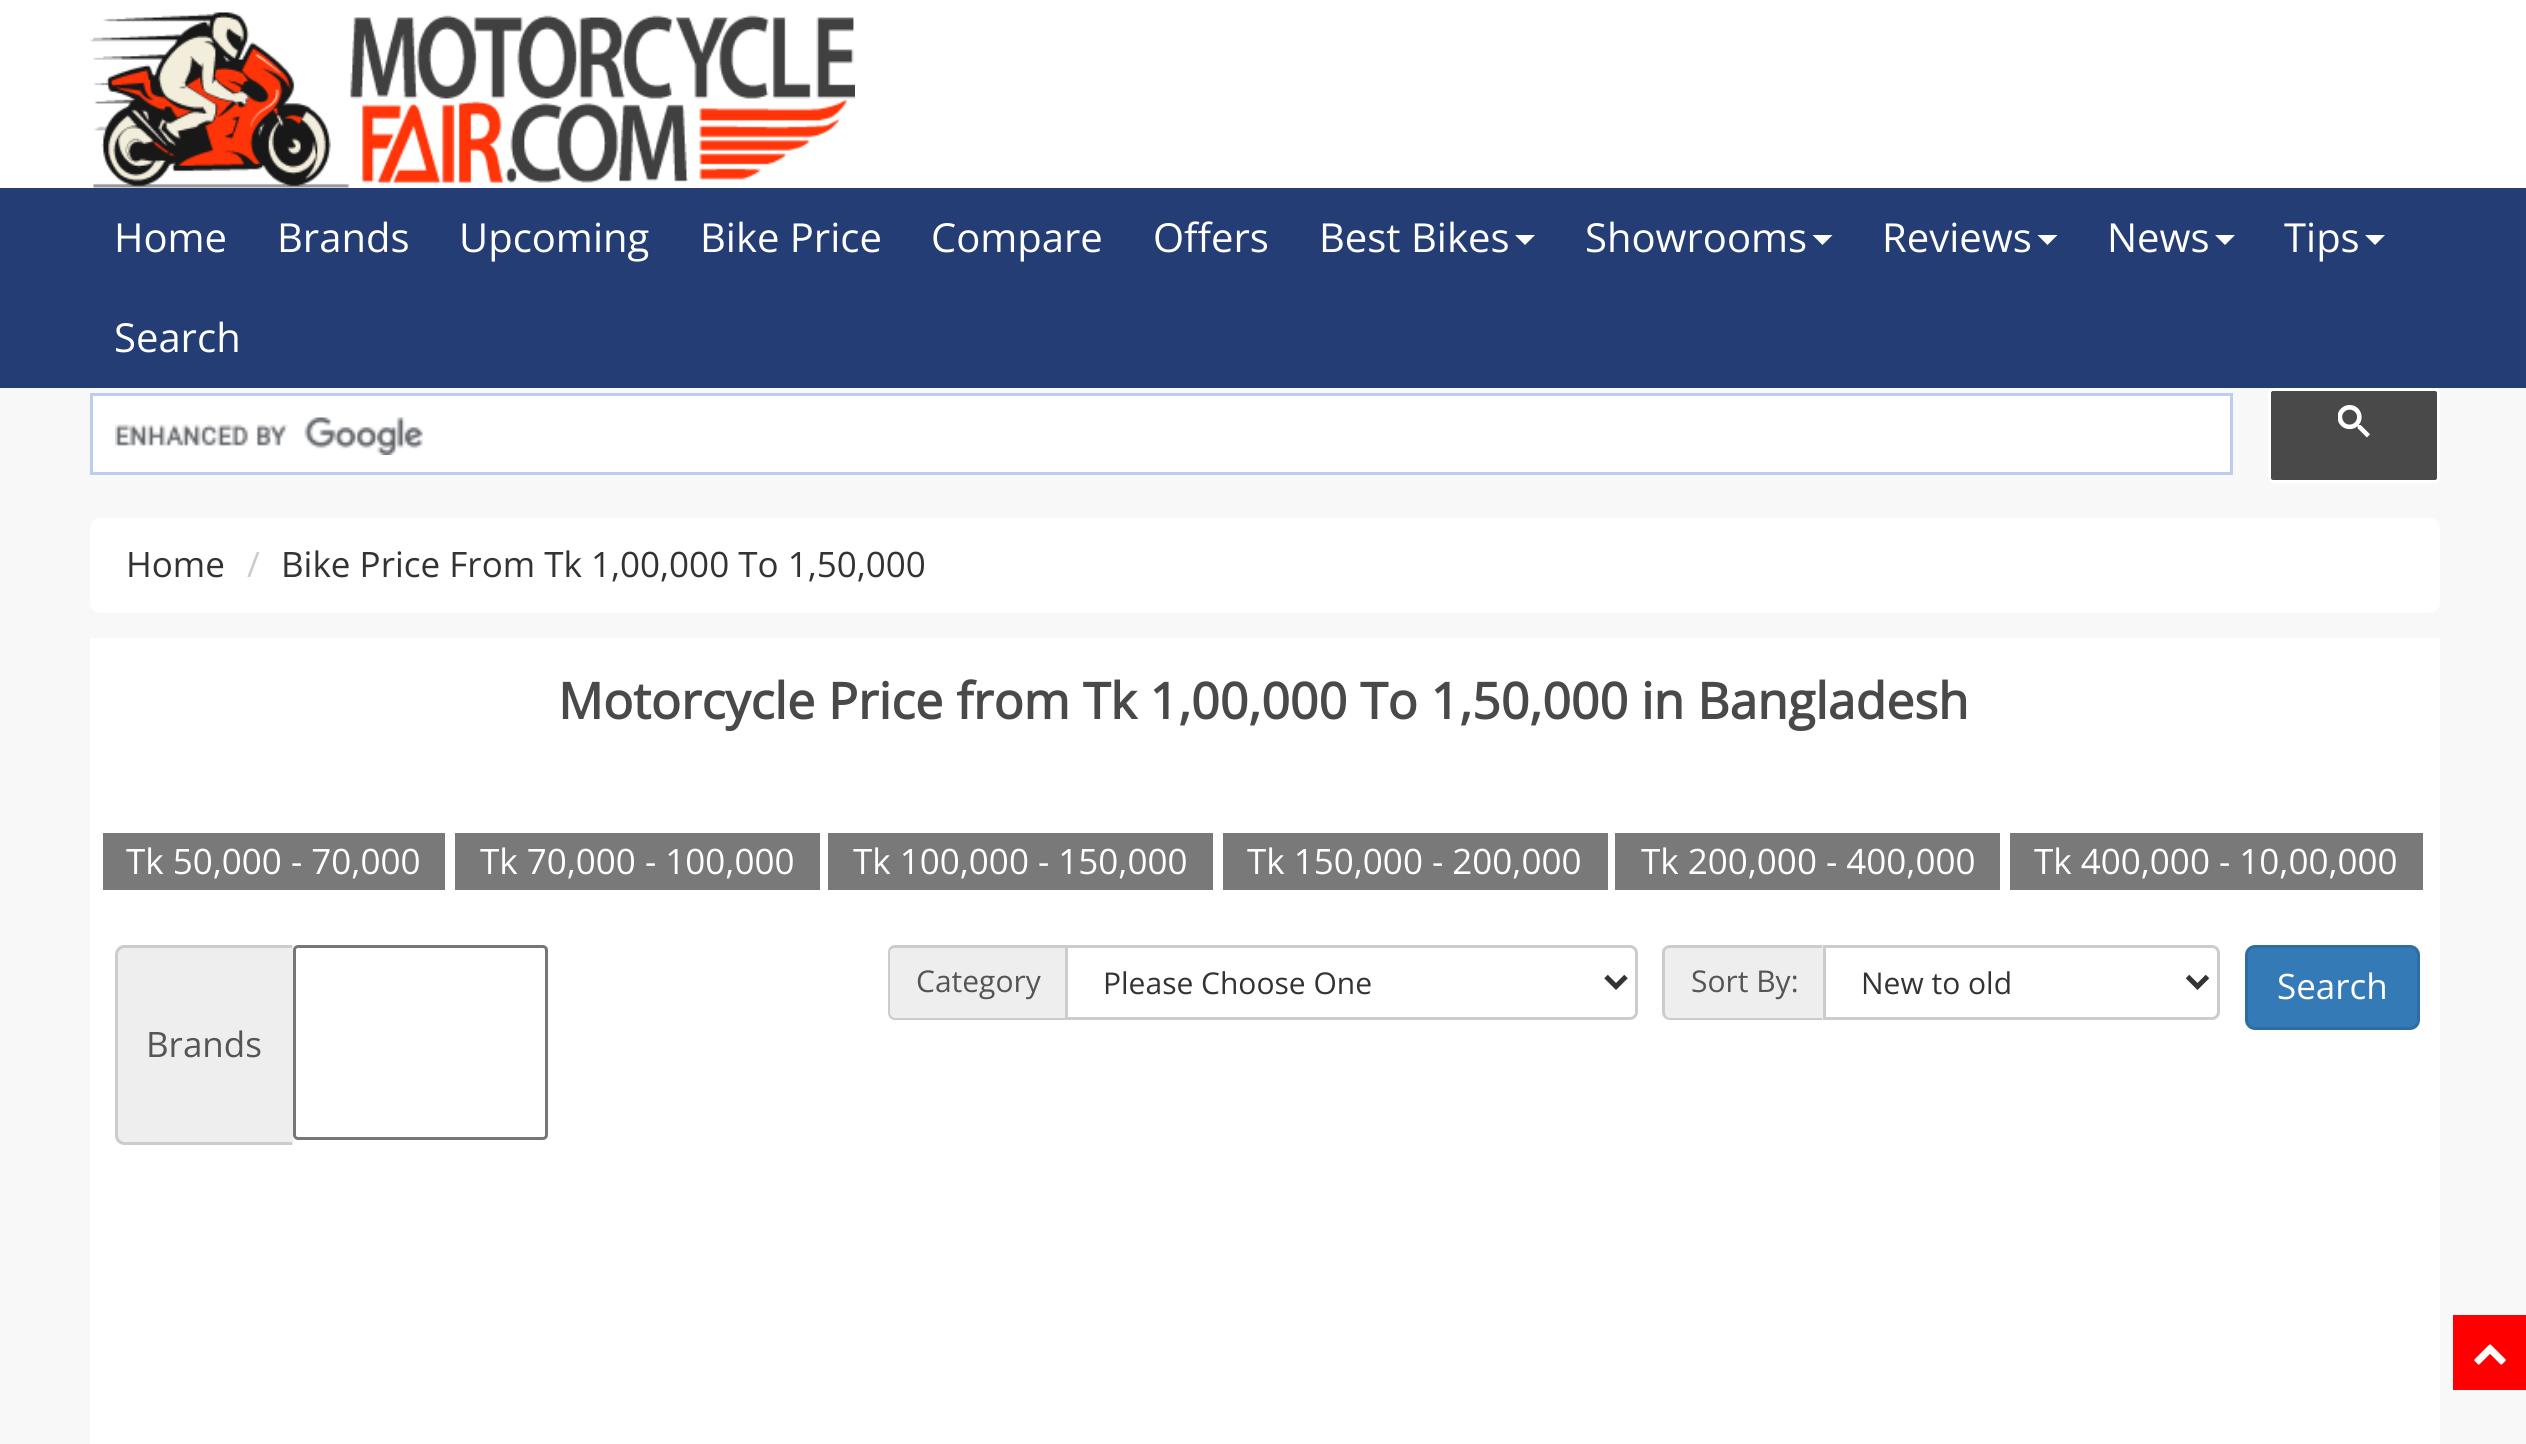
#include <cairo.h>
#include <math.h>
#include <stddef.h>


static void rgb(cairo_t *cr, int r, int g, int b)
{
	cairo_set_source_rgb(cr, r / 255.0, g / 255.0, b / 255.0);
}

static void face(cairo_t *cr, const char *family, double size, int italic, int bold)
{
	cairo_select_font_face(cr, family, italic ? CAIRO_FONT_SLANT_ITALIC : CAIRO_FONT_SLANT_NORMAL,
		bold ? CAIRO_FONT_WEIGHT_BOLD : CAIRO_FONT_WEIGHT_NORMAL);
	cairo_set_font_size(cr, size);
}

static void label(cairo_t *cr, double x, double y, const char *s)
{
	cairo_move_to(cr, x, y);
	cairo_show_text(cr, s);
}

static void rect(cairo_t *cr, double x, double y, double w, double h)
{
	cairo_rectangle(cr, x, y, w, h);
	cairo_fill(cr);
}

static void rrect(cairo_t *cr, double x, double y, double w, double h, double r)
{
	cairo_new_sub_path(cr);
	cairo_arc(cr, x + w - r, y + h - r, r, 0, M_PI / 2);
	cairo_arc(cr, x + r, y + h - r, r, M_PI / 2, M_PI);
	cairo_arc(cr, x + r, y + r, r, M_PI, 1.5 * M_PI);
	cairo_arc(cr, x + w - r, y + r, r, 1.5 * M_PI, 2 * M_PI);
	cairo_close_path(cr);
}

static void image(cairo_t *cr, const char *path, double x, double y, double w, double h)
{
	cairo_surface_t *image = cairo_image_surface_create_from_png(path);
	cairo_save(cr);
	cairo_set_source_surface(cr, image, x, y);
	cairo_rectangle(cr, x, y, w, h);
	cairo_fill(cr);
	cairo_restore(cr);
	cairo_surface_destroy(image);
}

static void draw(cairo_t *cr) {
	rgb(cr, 248, 248, 248);
	cairo_paint(cr);
	rgb(cr, 255, 255, 255);
	rect(cr, 0, 0, 2526, 188);
	image(cr, "image0.png", 90, 12, 765, 176);
	rgb(cr, 36, 61, 117);
	rect(cr, 0, 188, 2526, 200);
	face(cr, "Open Sans", 40, 0, 0);
	rgb(cr, 255, 255, 255);
	label(cr, 114, 252, "Home");
	label(cr, 277, 252, "Brands");
	label(cr, 459, 252, "Upcoming");
	label(cr, 700, 252, "Bike Price");
	label(cr, 931, 252, "Compare");
	label(cr, 1153, 252, "Offers");
	label(cr, 1319, 252, "Best Bikes");
	cairo_new_path(cr);
	cairo_move_to(cr, 1515, 235);
	cairo_line_to(cr, 1535, 235);
	cairo_line_to(cr, 1525, 245);
	cairo_close_path(cr);
	cairo_fill(cr);
	label(cr, 1585, 252, "Showrooms");
	cairo_new_path(cr);
	cairo_move_to(cr, 1812.5, 235);
	cairo_line_to(cr, 1832.5, 235);
	cairo_line_to(cr, 1822.5, 245);
	cairo_close_path(cr);
	cairo_fill(cr);
	label(cr, 1882, 252, "Reviews");
	cairo_new_path(cr);
	cairo_move_to(cr, 2037.5, 235);
	cairo_line_to(cr, 2057.5, 235);
	cairo_line_to(cr, 2047.5, 245);
	cairo_close_path(cr);
	cairo_fill(cr);
	label(cr, 2107, 252, "News");
	cairo_new_path(cr);
	cairo_move_to(cr, 2215, 235);
	cairo_line_to(cr, 2235, 235);
	cairo_line_to(cr, 2225, 245);
	cairo_close_path(cr);
	cairo_fill(cr);
	label(cr, 2284, 252, "Tips");
	cairo_new_path(cr);
	cairo_move_to(cr, 2365, 235);
	cairo_line_to(cr, 2385, 235);
	cairo_line_to(cr, 2375, 245);
	cairo_close_path(cr);
	cairo_fill(cr);
	label(cr, 114, 352, "Search");
	cairo_rectangle(cr, 91.5, 394.5, 2140, 79);
	cairo_fill_preserve(cr);
	rgb(cr, 188, 205, 240);
	cairo_set_line_width(cr, 3);
	cairo_stroke(cr);
	image(cr, "image1.png", 115, 417, 308, 38);
	rgb(cr, 73, 73, 73);
	rrect(cr, 2269.5, 389.5, 169, 92, 3.5);
	cairo_fill_preserve(cr);
	rgb(cr, 255, 255, 255);
	cairo_stroke(cr);
	image(cr, "image2.png", 2338, 405, 32, 33);
	rrect(cr, 90, 518, 2350, 95, 10);
	cairo_fill(cr);
	face(cr, "Open Sans", 35, 0, 0);
	rgb(cr, 51, 51, 51);
	label(cr, 126, 577, "Home");
	rgb(cr, 204, 204, 204);
	label(cr, 247, 577, "/");
	rgb(cr, 51, 51, 51);
	label(cr, 281, 577, "Bike Price From Tk 1,00,000 To 1,50,000");
	rgb(cr, 255, 255, 255);
	rect(cr, 90, 638, 2350, 806);
	face(cr, "Open Sans", 50, 0, 1);
	rgb(cr, 73, 73, 73);
	label(cr, 558, 719, "Motorcycle Price from Tk 1,00,000 To 1,50,000 in Bangladesh");
	rgb(cr, 121, 121, 121);
	rect(cr, 103, 833, 342, 57);
	face(cr, "Open Sans", 35, 0, 0);
	rgb(cr, 255, 255, 255);
	label(cr, 126, 874, "Tk 50,000 - 70,000");
	rgb(cr, 121, 121, 121);
	rect(cr, 455, 833, 365, 57);
	rgb(cr, 255, 255, 255);
	label(cr, 480, 874, "Tk 70,000 - 100,000");
	rgb(cr, 121, 121, 121);
	rect(cr, 828, 833, 385, 57);
	rgb(cr, 255, 255, 255);
	label(cr, 853, 874, "Tk 100,000 - 150,000");
	rgb(cr, 121, 121, 121);
	rect(cr, 1223, 833, 385, 57);
	rgb(cr, 255, 255, 255);
	label(cr, 1247, 874, "Tk 150,000 - 200,000");
	rgb(cr, 121, 121, 121);
	rect(cr, 1615, 833, 385, 57);
	rgb(cr, 255, 255, 255);
	label(cr, 1641, 874, "Tk 200,000 - 400,000");
	rgb(cr, 121, 121, 121);
	rect(cr, 2010, 833, 413, 57);
	rgb(cr, 255, 255, 255);
	label(cr, 2034, 874, "Tk 400,000 - 10,00,000");
	rgb(cr, 238, 238, 238);
	cairo_new_path(cr);
	cairo_move_to(cr, 896, 945);
	cairo_line_to(cr, 1065, 945);
	cairo_line_to(cr, 1065, 1020);
	cairo_line_to(cr, 896, 1020);
	cairo_curve_to(cr, 891.5, 1020, 888, 1016.5, 888, 1012);
	cairo_line_to(cr, 888, 953);
	cairo_curve_to(cr, 888, 948.5, 891.5, 945, 896, 945);
	cairo_close_path(cr);
	cairo_fill(cr);
	rgb(cr, 204, 204, 204);
	cairo_set_fill_rule(cr, CAIRO_FILL_RULE_EVEN_ODD);
	cairo_new_path(cr);
	cairo_move_to(cr, 895, 945);
	cairo_line_to(cr, 1065, 945);
	cairo_line_to(cr, 1065, 1020);
	cairo_line_to(cr, 895, 1020);
	cairo_curve_to(cr, 891, 1020, 888, 1017, 888, 1012);
	cairo_line_to(cr, 888, 952);
	cairo_curve_to(cr, 888, 948, 891, 945, 895, 945);
	cairo_close_path(cr);
	cairo_move_to(cr, 895, 948);
	cairo_line_to(cr, 1065, 948);
	cairo_line_to(cr, 1065, 1018);
	cairo_line_to(cr, 895, 1018);
	cairo_curve_to(cr, 892, 1018, 890, 1015, 890, 1012);
	cairo_line_to(cr, 890, 952);
	cairo_curve_to(cr, 890, 950, 892, 948, 895, 948);
	cairo_close_path(cr);
	cairo_fill(cr);
	face(cr, "Open Sans", 30, 0, 0);
	rgb(cr, 85, 85, 85);
	label(cr, 916, 992, "Category");
	cairo_new_path(cr);
	cairo_move_to(cr, 1066.5, 946.5);
	cairo_line_to(cr, 1630, 946.5);
	cairo_curve_to(cr, 1633.5, 946.5, 1636.5, 949.5, 1636.5, 953);
	cairo_line_to(cr, 1636.5, 1012);
	cairo_curve_to(cr, 1636.5, 1015.5, 1633.5, 1018.5, 1630, 1018.5);
	cairo_line_to(cr, 1066.5, 1018.5);
	cairo_close_path(cr);
	rgb(cr, 204, 204, 204);
	cairo_stroke(cr);
	cairo_new_path(cr);
	cairo_move_to(cr, 1606, 976.5);
	cairo_line_to(cr, 1616, 986.5);
	cairo_line_to(cr, 1626, 976.5);
	rgb(cr, 51, 51, 51);
	cairo_set_line_width(cr, 5);
	cairo_stroke(cr);
	label(cr, 1103, 994, "Please Choose One");
	rgb(cr, 238, 238, 238);
	cairo_new_path(cr);
	cairo_move_to(cr, 1671, 945);
	cairo_line_to(cr, 1823, 945);
	cairo_line_to(cr, 1823, 1020);
	cairo_line_to(cr, 1671, 1020);
	cairo_curve_to(cr, 1666.5, 1020, 1663, 1016.5, 1663, 1012);
	cairo_line_to(cr, 1663, 953);
	cairo_curve_to(cr, 1663, 948.5, 1666.5, 945, 1671, 945);
	cairo_close_path(cr);
	cairo_fill(cr);
	rgb(cr, 204, 204, 204);
	cairo_new_path(cr);
	cairo_move_to(cr, 1670, 945);
	cairo_line_to(cr, 1822, 945);
	cairo_line_to(cr, 1822, 1020);
	cairo_line_to(cr, 1670, 1020);
	cairo_curve_to(cr, 1666, 1020, 1662, 1017, 1662, 1012);
	cairo_line_to(cr, 1662, 952);
	cairo_curve_to(cr, 1662, 948, 1666, 945, 1670, 945);
	cairo_close_path(cr);
	cairo_move_to(cr, 1670, 948);
	cairo_line_to(cr, 1822, 948);
	cairo_line_to(cr, 1822, 1018);
	cairo_line_to(cr, 1670, 1018);
	cairo_curve_to(cr, 1667, 1018, 1665, 1015, 1665, 1012);
	cairo_line_to(cr, 1665, 952);
	cairo_curve_to(cr, 1665, 950, 1667, 948, 1670, 948);
	cairo_close_path(cr);
	cairo_fill(cr);
	rgb(cr, 85, 85, 85);
	label(cr, 1691, 992, "Sort By:");
	cairo_new_path(cr);
	cairo_move_to(cr, 1824.5, 946.5);
	cairo_line_to(cr, 2212, 946.5);
	cairo_curve_to(cr, 2215.5, 946.5, 2218.5, 949.5, 2218.5, 953);
	cairo_line_to(cr, 2218.5, 1012);
	cairo_curve_to(cr, 2218.5, 1015.5, 2215.5, 1018.5, 2212, 1018.5);
	cairo_line_to(cr, 1824.5, 1018.5);
	cairo_close_path(cr);
	rgb(cr, 204, 204, 204);
	cairo_set_line_width(cr, 3);
	cairo_stroke(cr);
	cairo_new_path(cr);
	cairo_move_to(cr, 2187.5, 976.5);
	cairo_line_to(cr, 2197.5, 986.5);
	cairo_line_to(cr, 2207.5, 976.5);
	rgb(cr, 51, 51, 51);
	cairo_set_line_width(cr, 5);
	cairo_stroke(cr);
	label(cr, 1861, 994, "New to old");
	rgb(cr, 51, 122, 183);
	rrect(cr, 2246.5, 946.5, 172, 82, 8.5);
	cairo_fill_preserve(cr);
	rgb(cr, 46, 109, 164);
	cairo_set_line_width(cr, 3);
	cairo_stroke(cr);
	face(cr, "Open Sans", 35, 0, 0);
	rgb(cr, 255, 255, 255);
	label(cr, 2277, 999, "Search");
	rgb(cr, 238, 238, 238);
	cairo_new_path(cr);
	cairo_move_to(cr, 125, 945);
	cairo_line_to(cr, 293, 945);
	cairo_line_to(cr, 293, 1145);
	cairo_line_to(cr, 125, 1145);
	cairo_curve_to(cr, 119.5, 1145, 115, 1140.5, 115, 1135);
	cairo_line_to(cr, 115, 955);
	cairo_curve_to(cr, 115, 949.5, 119.5, 945, 125, 945);
	cairo_close_path(cr);
	cairo_fill(cr);
	rgb(cr, 204, 204, 204);
	cairo_new_path(cr);
	cairo_move_to(cr, 125, 945);
	cairo_line_to(cr, 292, 945);
	cairo_line_to(cr, 292, 1145);
	cairo_line_to(cr, 125, 1145);
	cairo_curve_to(cr, 119, 1145, 115, 1141, 115, 1135);
	cairo_line_to(cr, 115, 955);
	cairo_curve_to(cr, 115, 949, 119, 945, 125, 945);
	cairo_close_path(cr);
	cairo_move_to(cr, 125, 948);
	cairo_line_to(cr, 292, 948);
	cairo_line_to(cr, 292, 1142);
	cairo_line_to(cr, 125, 1142);
	cairo_curve_to(cr, 121, 1142, 118, 1139, 118, 1135);
	cairo_line_to(cr, 118, 955);
	cairo_curve_to(cr, 118, 951, 121, 948, 125, 948);
	cairo_close_path(cr);
	cairo_fill(cr);
	rgb(cr, 85, 85, 85);
	label(cr, 146, 1057, "Brands");
	rrect(cr, 294.5, 946.5, 252, 192, 3.5);
	rgb(cr, 118, 118, 118);
	cairo_stroke(cr);
	rgb(cr, 255, 0, 0);
	rect(cr, 2453, 1315, 73, 75);
	image(cr, "image3.png", 2474, 1344, 32, 21);
}

int main(void) {
	cairo_surface_t *surface = cairo_image_surface_create(CAIRO_FORMAT_RGB24, 2526, 1444);
	cairo_t *cr = cairo_create(surface);
	cairo_font_options_t *options = cairo_font_options_create();
	cairo_font_options_set_hint_metrics(options, CAIRO_HINT_METRICS_OFF);
	cairo_font_options_set_hint_style(options, CAIRO_HINT_STYLE_NONE);
	cairo_set_font_options(cr, options);
	cairo_set_miter_limit(cr, 4);
	draw(cr);
	cairo_surface_write_to_png(surface, "render.png");
	cairo_font_options_destroy(options);
	cairo_destroy(cr);
	cairo_surface_destroy(surface);
	return 0;
}
